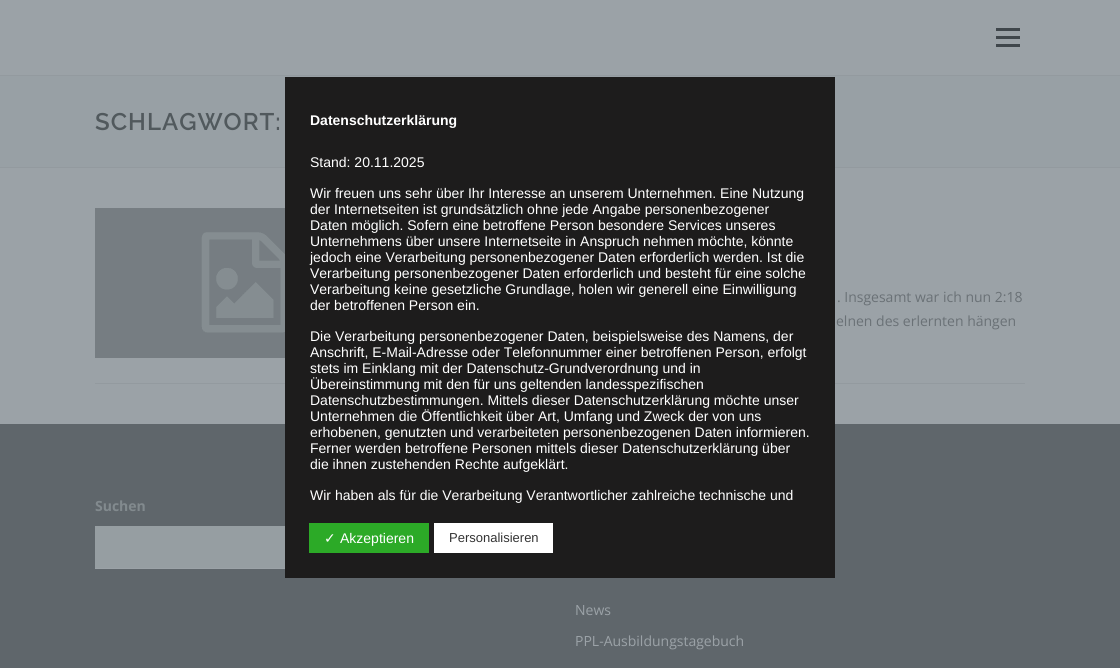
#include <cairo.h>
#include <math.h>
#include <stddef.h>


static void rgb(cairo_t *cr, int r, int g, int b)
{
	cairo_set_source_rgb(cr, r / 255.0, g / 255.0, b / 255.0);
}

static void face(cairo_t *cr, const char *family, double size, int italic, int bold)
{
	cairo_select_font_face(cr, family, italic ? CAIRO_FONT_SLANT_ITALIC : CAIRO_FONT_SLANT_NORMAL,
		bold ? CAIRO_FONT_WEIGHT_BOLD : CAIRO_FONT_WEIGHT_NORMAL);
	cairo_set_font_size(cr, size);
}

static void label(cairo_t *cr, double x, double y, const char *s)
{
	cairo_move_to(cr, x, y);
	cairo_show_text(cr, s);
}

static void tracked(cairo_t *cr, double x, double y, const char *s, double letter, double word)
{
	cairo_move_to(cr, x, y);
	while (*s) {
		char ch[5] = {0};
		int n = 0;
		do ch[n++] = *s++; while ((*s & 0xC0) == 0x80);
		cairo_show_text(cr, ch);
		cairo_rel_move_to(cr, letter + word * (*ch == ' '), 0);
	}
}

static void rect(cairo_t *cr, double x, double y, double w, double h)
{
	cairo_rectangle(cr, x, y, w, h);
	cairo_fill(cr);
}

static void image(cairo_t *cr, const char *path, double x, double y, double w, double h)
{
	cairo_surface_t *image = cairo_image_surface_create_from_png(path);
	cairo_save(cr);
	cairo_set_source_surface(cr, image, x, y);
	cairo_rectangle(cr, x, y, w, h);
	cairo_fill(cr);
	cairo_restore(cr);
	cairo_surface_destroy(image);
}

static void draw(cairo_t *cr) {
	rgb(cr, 155, 162, 167);
	cairo_paint(cr);
	rgb(cr, 63, 70, 75);
	rect(cr, 996, 36, 24, 3);
	rect(cr, 996, 28, 24, 3);
	rect(cr, 996, 44, 24, 3);
	rgb(cr, 152, 160, 165);
	rect(cr, 0, 76, 1120, 91);
	rgb(cr, 147, 154, 159);
	rect(cr, 0, 75, 1120, 1);
	rect(cr, 0, 167, 1120, 1);
	face(cr, "Raleway SemiBold", 24, 0, 0);
	rgb(cr, 81, 89, 93);
	tracked(cr, 95, 130, "SCHLAGWORT:", 1, 0);
	rgb(cr, 147, 154, 159);
	rect(cr, 95, 383, 930, 1);
	image(cr, "image0.png", 95, 208, 190, 150);
	face(cr, "Open Sans", 14, 0, 0);
	rgb(cr, 106, 113, 118);
	label(cr, 837, 302, ". Insgesamt war ich nun 2:18");
	label(cr, 836, 326, "elnen des erlernten hängen");
	rgb(cr, 95, 102, 107);
	rect(cr, 0, 424, 1120, 244);
	face(cr, "Open Sans", 14, 0, 1);
	rgb(cr, 130, 138, 142);
	label(cr, 95, 511, "Suchen");
	rgb(cr, 150, 158, 162);
	rect(cr, 95, 526, 190, 42);
	rgb(cr, 155, 162, 167);
	rect(cr, 95, 568, 190, 1);
	face(cr, "Open Sans", 14, 0, 0);
	label(cr, 575, 615, "News");
	label(cr, 575, 646, "PPL-Ausbildungstagebuch");
	rgb(cr, 29, 28, 28);
	rect(cr, 285, 77, 550, 501);
	face(cr, "Liberation Sans", 14, 0, 1);
	rgb(cr, 255, 255, 255);
	label(cr, 310, 125, "Datenschutzerklärung");
	face(cr, "Liberation Sans", 14, 0, 0);
	label(cr, 310, 167, "Stand: 20.11.2025");
	label(cr, 310, 198, "Wir freuen uns sehr über Ihr Interesse an unserem Unternehmen. Eine Nutzung");
	label(cr, 310, 214, "der Internetseiten ist grundsätzlich ohne jede Angabe personenbezogener");
	label(cr, 310, 230, "Daten möglich. Sofern eine betroffene Person besondere Services unseres");
	label(cr, 310, 246, "Unternehmens über unsere Internetseite in Anspruch nehmen möchte, könnte");
	label(cr, 310, 262, "jedoch eine Verarbeitung personenbezogener Daten erforderlich werden. Ist die");
	label(cr, 310, 278, "Verarbeitung personenbezogener Daten erforderlich und besteht für eine solche");
	label(cr, 310, 294, "Verarbeitung keine gesetzliche Grundlage, holen wir generell eine Einwilligung");
	label(cr, 310, 310, "der betroffenen Person ein.");
	label(cr, 310, 341, "Die Verarbeitung personenbezogener Daten, beispielsweise des Namens, der");
	label(cr, 310, 357, "Anschrift, E-Mail-Adresse oder Telefonnummer einer betroffenen Person, erfolgt");
	label(cr, 310, 373, "stets im Einklang mit der Datenschutz-Grundverordnung und in");
	label(cr, 310, 389, "Übereinstimmung mit den für uns geltenden landesspezifischen");
	label(cr, 310, 405, "Datenschutzbestimmungen. Mittels dieser Datenschutzerklärung möchte unser");
	label(cr, 310, 421, "Unternehmen die Öffentlichkeit über Art, Umfang und Zweck der von uns");
	label(cr, 310, 437, "erhobenen, genutzten und verarbeiteten personenbezogenen Daten informieren.");
	label(cr, 310, 453, "Ferner werden betroffene Personen mittels dieser Datenschutzerklärung über");
	label(cr, 310, 469, "die ihnen zustehenden Rechte aufgeklärt.");
	label(cr, 310, 500, "Wir haben als für die Verarbeitung Verantwortlicher zahlreiche technische und");
	rgb(cr, 44, 170, 39);
	rect(cr, 309, 523, 120, 30);
	face(cr, "DejaVu Sans", 14, 0, 0);
	rgb(cr, 255, 255, 255);
	label(cr, 324, 543, "✓");
	face(cr, "Liberation Sans", 14, 0, 0);
	label(cr, 340, 543, "Akzeptieren");
	rect(cr, 434, 523, 119, 30);
	face(cr, "Liberation Sans", 13, 0, 0);
	rgb(cr, 51, 51, 51);
	label(cr, 449, 542, "Personalisieren");
}

int main(void) {
	cairo_surface_t *surface = cairo_image_surface_create(CAIRO_FORMAT_RGB24, 1120, 668);
	cairo_t *cr = cairo_create(surface);
	cairo_font_options_t *options = cairo_font_options_create();
	cairo_font_options_set_hint_metrics(options, CAIRO_HINT_METRICS_OFF);
	cairo_font_options_set_hint_style(options, CAIRO_HINT_STYLE_NONE);
	cairo_set_font_options(cr, options);
	cairo_set_miter_limit(cr, 4);
	draw(cr);
	cairo_surface_write_to_png(surface, "render.png");
	cairo_font_options_destroy(options);
	cairo_destroy(cr);
	cairo_surface_destroy(surface);
	return 0;
}
